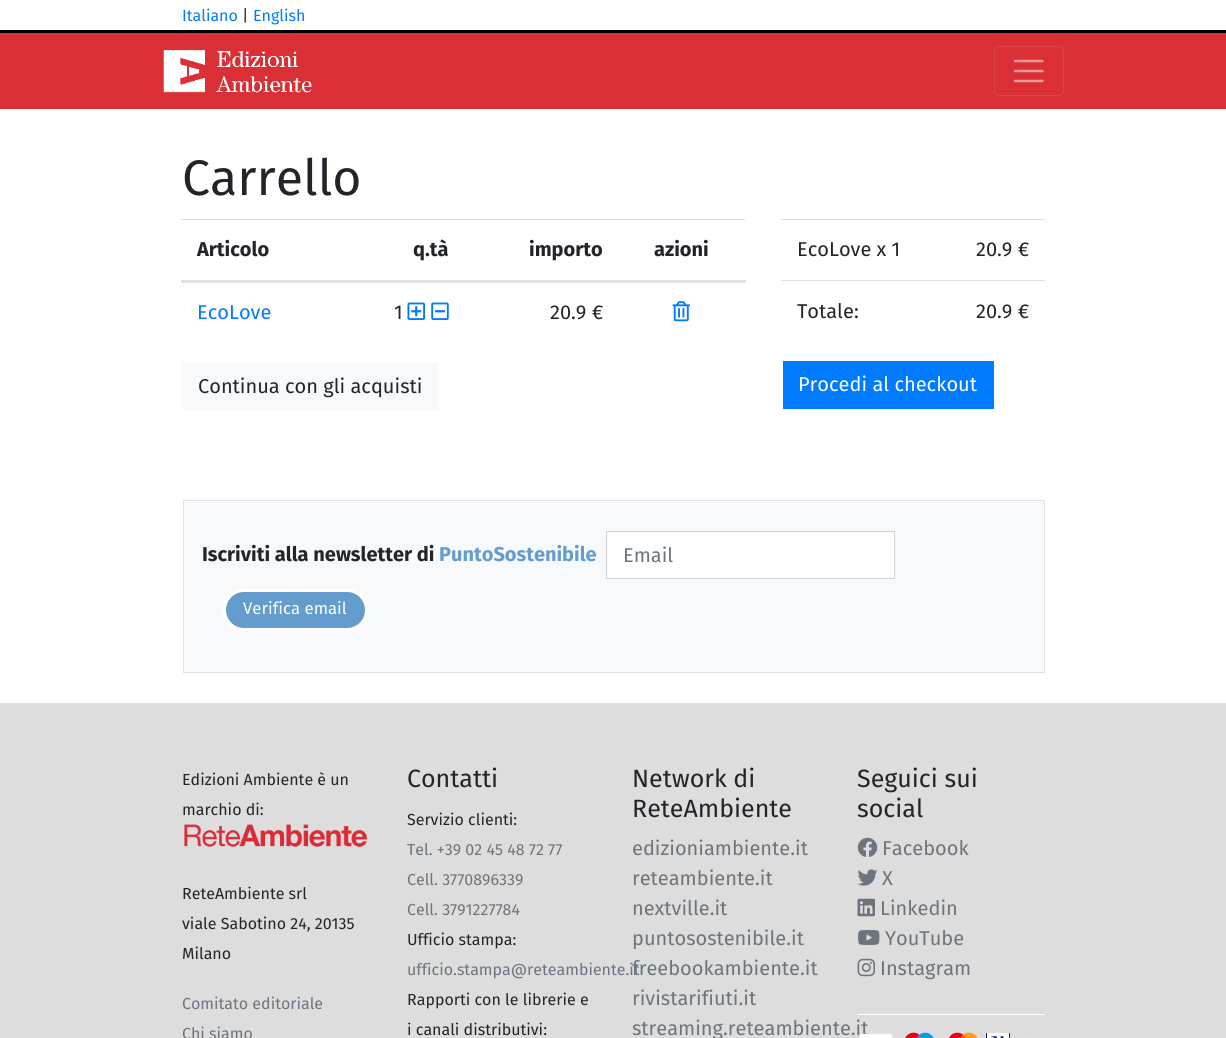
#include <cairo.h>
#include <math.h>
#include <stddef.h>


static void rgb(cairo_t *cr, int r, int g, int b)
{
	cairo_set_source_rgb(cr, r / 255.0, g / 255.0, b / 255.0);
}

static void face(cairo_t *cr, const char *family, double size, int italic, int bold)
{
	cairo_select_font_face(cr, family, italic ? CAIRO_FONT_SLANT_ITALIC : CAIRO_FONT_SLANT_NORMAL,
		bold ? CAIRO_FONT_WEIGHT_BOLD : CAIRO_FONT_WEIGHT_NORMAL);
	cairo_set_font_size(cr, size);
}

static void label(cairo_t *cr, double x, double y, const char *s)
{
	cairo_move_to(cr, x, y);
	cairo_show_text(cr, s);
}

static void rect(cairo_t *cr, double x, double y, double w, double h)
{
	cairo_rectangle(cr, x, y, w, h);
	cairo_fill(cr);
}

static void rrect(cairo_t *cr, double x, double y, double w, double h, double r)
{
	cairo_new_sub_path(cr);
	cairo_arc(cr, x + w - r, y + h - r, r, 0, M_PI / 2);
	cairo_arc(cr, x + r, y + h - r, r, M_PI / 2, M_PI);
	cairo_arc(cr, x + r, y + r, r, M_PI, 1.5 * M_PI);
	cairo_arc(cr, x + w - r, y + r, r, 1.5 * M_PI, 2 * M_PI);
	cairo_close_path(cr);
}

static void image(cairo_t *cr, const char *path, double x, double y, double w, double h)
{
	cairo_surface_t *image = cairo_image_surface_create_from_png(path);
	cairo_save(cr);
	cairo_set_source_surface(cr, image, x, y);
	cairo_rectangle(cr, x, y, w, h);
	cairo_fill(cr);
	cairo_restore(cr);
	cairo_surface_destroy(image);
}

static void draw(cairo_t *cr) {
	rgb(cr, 255, 255, 255);
	cairo_paint(cr);
	rgb(cr, 0, 0, 0);
	rect(cr, 0, 30, 1226, 3);
	face(cr, "Fira Sans", 16, 0, 0);
	rgb(cr, 0, 123, 255);
	label(cr, 182, 21, "Italiano");
	rgb(cr, 33, 37, 41);
	label(cr, 242, 21, "|");
	rgb(cr, 0, 123, 255);
	label(cr, 253, 21, "English");
	rgb(cr, 219, 47, 54);
	rect(cr, 0, 33, 1226, 76);
	image(cr, "image0.png", 163, 50, 149, 43);
	rrect(cr, 994.5, 46.5, 69, 49, 4.5);
	rgb(cr, 223, 68, 74);
	cairo_set_line_width(cr, 1);
	cairo_stroke(cr);
	cairo_new_path(cr);
	cairo_move_to(cr, 1015, 61);
	cairo_line_to(cr, 1042.5, 61);
	cairo_move_to(cr, 1015, 71);
	cairo_line_to(cr, 1042.5, 71);
	cairo_move_to(cr, 1015, 81);
	cairo_line_to(cr, 1042.5, 81);
	rgb(cr, 237, 151, 155);
	cairo_set_line_width(cr, 2.5);
	cairo_set_line_cap(cr, CAIRO_LINE_CAP_ROUND);
	cairo_stroke(cr);
	face(cr, "Fira Sans", 50, 0, 0);
	rgb(cr, 33, 37, 41);
	label(cr, 182, 195, "Carrello");
	face(cr, "Fira Sans", 20, 0, 1);
	label(cr, 197, 256, "Articolo");
	label(cr, 413, 256, "q.tà");
	label(cr, 529, 256, "importo");
	rgb(cr, 222, 226, 230);
	rect(cr, 181, 219, 564, 1);
	rect(cr, 181, 280, 565, 3);
	rgb(cr, 33, 37, 41);
	label(cr, 654, 256, "azioni");
	face(cr, "Fira Sans", 20, 0, 0);
	rgb(cr, 0, 123, 255);
	label(cr, 197, 319, "EcoLove");
	rgb(cr, 33, 37, 41);
	label(cr, 394, 319, "1");
	image(cr, "image1.png", 407, 302, 18, 18);
	image(cr, "image2.png", 431, 302, 18, 18);
	label(cr, 550, 319, "20.9 €");
	image(cr, "image3.png", 672, 301, 18, 21);
	rgb(cr, 248, 249, 250);
	rect(cr, 183, 363, 256, 47);
	rgb(cr, 33, 37, 41);
	label(cr, 198, 393, "Continua con gli acquisti");
	label(cr, 797, 256, "EcoLove x 1");
	rgb(cr, 222, 226, 230);
	rect(cr, 781, 219, 264, 1);
	rgb(cr, 33, 37, 41);
	label(cr, 976, 256, "20.9 €");
	label(cr, 797, 318, "Totale:");
	rgb(cr, 222, 226, 230);
	rect(cr, 781, 280, 264, 1);
	rgb(cr, 33, 37, 41);
	label(cr, 976, 318, "20.9 €");
	rgb(cr, 0, 123, 255);
	rect(cr, 783, 361, 211, 48);
	rgb(cr, 255, 255, 255);
	label(cr, 798, 391, "Procedi al checkout");
	rgb(cr, 248, 249, 250);
	cairo_rectangle(cr, 183.5, 500.5, 861, 172);
	cairo_fill_preserve(cr);
	rgb(cr, 222, 226, 230);
	cairo_set_line_width(cr, 1);
	cairo_set_line_cap(cr, CAIRO_LINE_CAP_BUTT);
	cairo_stroke(cr);
	face(cr, "Fira Sans", 20, 0, 1);
	rgb(cr, 33, 37, 41);
	label(cr, 202, 561, "Iscriviti alla newsletter di");
	rgb(cr, 100, 157, 205);
	label(cr, 439, 561, "PuntoSostenibile");
	rgb(cr, 255, 255, 255);
	rect(cr, 608, 533, 286, 45);
	cairo_rectangle(cr, 606.5, 531.5, 288, 47);
	rgb(cr, 206, 212, 218);
	cairo_stroke(cr);
	face(cr, "Fira Sans", 20, 0, 0);
	rgb(cr, 108, 117, 125);
	label(cr, 623, 562, "Email");
	rgb(cr, 100, 157, 205);
	rrect(cr, 224.5, 590.5, 142, 39, 19.5);
	cairo_fill_preserve(cr);
	rgb(cr, 255, 255, 255);
	cairo_set_line_width(cr, 3);
	cairo_stroke(cr);
	face(cr, "Fira Sans", 16.75, 0, 0);
	label(cr, 243, 614, "Verifica email");
	rgb(cr, 221, 221, 221);
	rect(cr, 0, 704, 1226, 334);
	rgb(cr, 222, 226, 230);
	rect(cr, 0, 703, 1226, 1);
	face(cr, "Fira Sans", 16, 0, 0);
	rgb(cr, 33, 37, 41);
	label(cr, 182, 785, "Edizioni Ambiente è un");
	label(cr, 182, 815, "marchio di:");
	image(cr, "image4.png", 184, 824, 184, 23);
	label(cr, 182, 899, "ReteAmbiente srl");
	label(cr, 182, 929, "viale Sabotino 24, 20135");
	label(cr, 182, 959, "Milano");
	rgb(cr, 108, 117, 125);
	label(cr, 182, 1009, "Comitato editoriale");
	label(cr, 182, 1039, "Chi siamo");
	face(cr, "Fira Sans", 25, 0, 0);
	rgb(cr, 33, 37, 41);
	label(cr, 407, 787, "Contatti");
	face(cr, "Fira Sans", 16, 0, 0);
	label(cr, 407, 825, "Servizio clienti:");
	rgb(cr, 108, 117, 125);
	label(cr, 407, 855, "Tel. +39 02 45 48 72 77");
	label(cr, 407, 885, "Cell. 3770896339");
	label(cr, 407, 915, "Cell. 3791227784");
	rgb(cr, 33, 37, 41);
	label(cr, 407, 945, "Ufficio stampa:");
	rgb(cr, 108, 117, 125);
	label(cr, 407, 975, "ufficio.stampa@reteambiente.it");
	rgb(cr, 33, 37, 41);
	label(cr, 407, 1005, "Rapporti con le librerie e");
	label(cr, 407, 1035, "i canali distributivi:");
	face(cr, "Fira Sans", 25, 0, 0);
	label(cr, 632, 787, "Network di");
	label(cr, 632, 817, "ReteAmbiente");
	face(cr, "Fira Sans", 20, 0, 0);
	rgb(cr, 108, 117, 125);
	label(cr, 632, 855, "edizioniambiente.it");
	label(cr, 632, 885, "reteambiente.it");
	label(cr, 632, 915, "nextville.it");
	label(cr, 632, 945, "puntosostenibile.it");
	label(cr, 632, 975, "freebookambiente.it");
	label(cr, 632, 1005, "rivistarifiuti.it");
	label(cr, 632, 1035, "streaming.reteambiente.it");
	face(cr, "Fira Sans", 25, 0, 0);
	rgb(cr, 33, 37, 41);
	label(cr, 857, 787, "Seguici sui");
	label(cr, 857, 817, "social");
	image(cr, "image5.png", 857, 837, 21, 20);
	face(cr, "Fira Sans", 20, 0, 0);
	rgb(cr, 108, 117, 125);
	label(cr, 882, 855, "Facebook");
	image(cr, "image6.png", 857, 869, 21, 17);
	label(cr, 882, 885, "X");
	image(cr, "image7.png", 857, 898, 18, 19);
	label(cr, 880, 915, "Linkedin");
	image(cr, "image8.png", 858, 930, 22, 15);
	label(cr, 885, 945, "YouTube");
	image(cr, "image9.png", 857, 958, 18, 19);
	label(cr, 880, 975, "Instagram");
	rgb(cr, 255, 255, 255);
	rect(cr, 858, 1014, 187, 1);
	image(cr, "image10.png", 860, 1033, 33, 5);
	image(cr, "image11.png", 905, 1032, 29, 6);
	image(cr, "image12.png", 949, 1032, 29, 6);
	image(cr, "image13.png", 986, 1033, 24, 5);
	image(cr, "image14.png", 1022, 1037, 14, 1);
}

int main(void) {
	cairo_surface_t *surface = cairo_image_surface_create(CAIRO_FORMAT_RGB24, 1226, 1038);
	cairo_t *cr = cairo_create(surface);
	cairo_font_options_t *options = cairo_font_options_create();
	cairo_font_options_set_hint_metrics(options, CAIRO_HINT_METRICS_OFF);
	cairo_font_options_set_hint_style(options, CAIRO_HINT_STYLE_NONE);
	cairo_set_font_options(cr, options);
	cairo_set_miter_limit(cr, 4);
	draw(cr);
	cairo_surface_write_to_png(surface, "render.png");
	cairo_font_options_destroy(options);
	cairo_destroy(cr);
	cairo_surface_destroy(surface);
	return 0;
}
